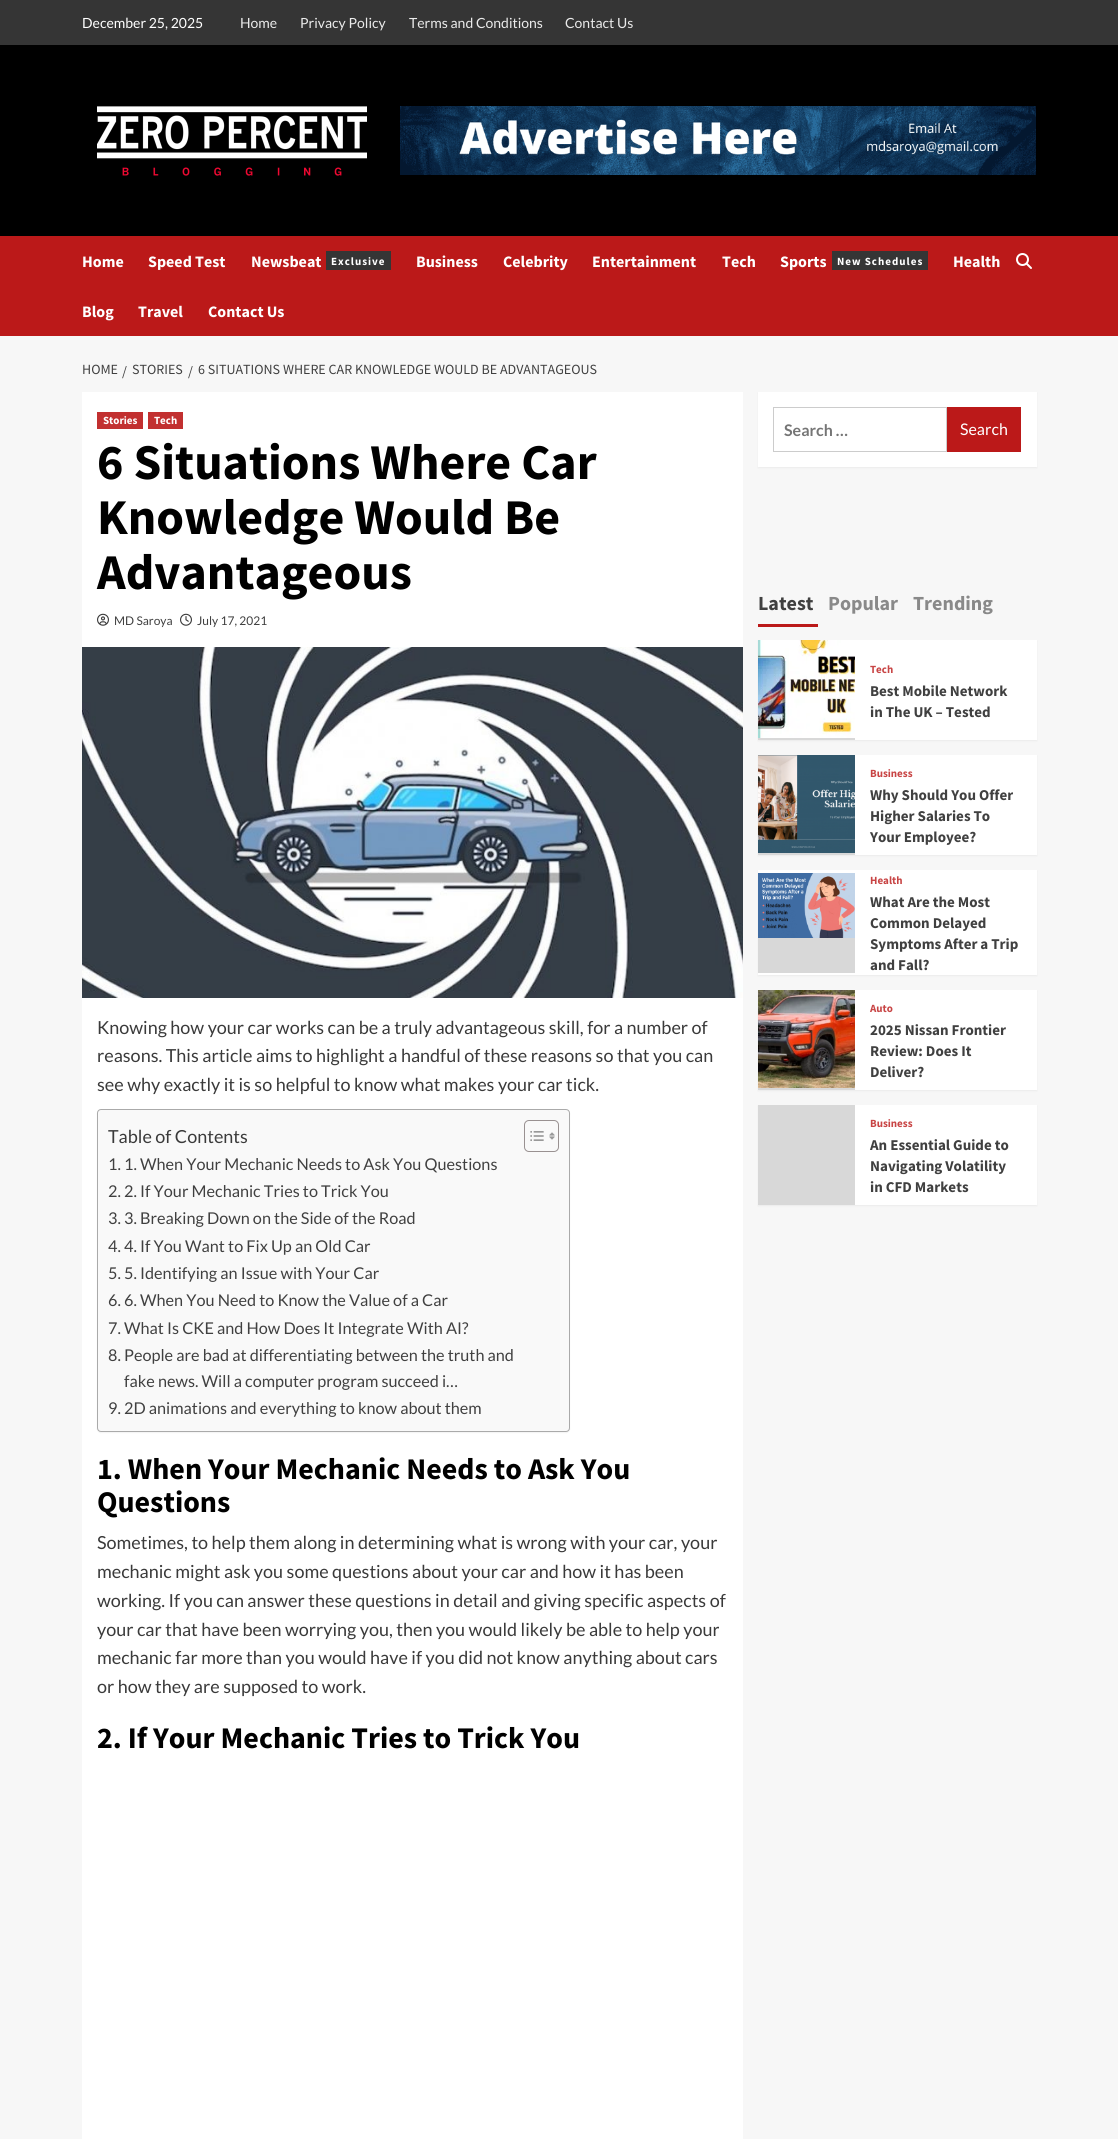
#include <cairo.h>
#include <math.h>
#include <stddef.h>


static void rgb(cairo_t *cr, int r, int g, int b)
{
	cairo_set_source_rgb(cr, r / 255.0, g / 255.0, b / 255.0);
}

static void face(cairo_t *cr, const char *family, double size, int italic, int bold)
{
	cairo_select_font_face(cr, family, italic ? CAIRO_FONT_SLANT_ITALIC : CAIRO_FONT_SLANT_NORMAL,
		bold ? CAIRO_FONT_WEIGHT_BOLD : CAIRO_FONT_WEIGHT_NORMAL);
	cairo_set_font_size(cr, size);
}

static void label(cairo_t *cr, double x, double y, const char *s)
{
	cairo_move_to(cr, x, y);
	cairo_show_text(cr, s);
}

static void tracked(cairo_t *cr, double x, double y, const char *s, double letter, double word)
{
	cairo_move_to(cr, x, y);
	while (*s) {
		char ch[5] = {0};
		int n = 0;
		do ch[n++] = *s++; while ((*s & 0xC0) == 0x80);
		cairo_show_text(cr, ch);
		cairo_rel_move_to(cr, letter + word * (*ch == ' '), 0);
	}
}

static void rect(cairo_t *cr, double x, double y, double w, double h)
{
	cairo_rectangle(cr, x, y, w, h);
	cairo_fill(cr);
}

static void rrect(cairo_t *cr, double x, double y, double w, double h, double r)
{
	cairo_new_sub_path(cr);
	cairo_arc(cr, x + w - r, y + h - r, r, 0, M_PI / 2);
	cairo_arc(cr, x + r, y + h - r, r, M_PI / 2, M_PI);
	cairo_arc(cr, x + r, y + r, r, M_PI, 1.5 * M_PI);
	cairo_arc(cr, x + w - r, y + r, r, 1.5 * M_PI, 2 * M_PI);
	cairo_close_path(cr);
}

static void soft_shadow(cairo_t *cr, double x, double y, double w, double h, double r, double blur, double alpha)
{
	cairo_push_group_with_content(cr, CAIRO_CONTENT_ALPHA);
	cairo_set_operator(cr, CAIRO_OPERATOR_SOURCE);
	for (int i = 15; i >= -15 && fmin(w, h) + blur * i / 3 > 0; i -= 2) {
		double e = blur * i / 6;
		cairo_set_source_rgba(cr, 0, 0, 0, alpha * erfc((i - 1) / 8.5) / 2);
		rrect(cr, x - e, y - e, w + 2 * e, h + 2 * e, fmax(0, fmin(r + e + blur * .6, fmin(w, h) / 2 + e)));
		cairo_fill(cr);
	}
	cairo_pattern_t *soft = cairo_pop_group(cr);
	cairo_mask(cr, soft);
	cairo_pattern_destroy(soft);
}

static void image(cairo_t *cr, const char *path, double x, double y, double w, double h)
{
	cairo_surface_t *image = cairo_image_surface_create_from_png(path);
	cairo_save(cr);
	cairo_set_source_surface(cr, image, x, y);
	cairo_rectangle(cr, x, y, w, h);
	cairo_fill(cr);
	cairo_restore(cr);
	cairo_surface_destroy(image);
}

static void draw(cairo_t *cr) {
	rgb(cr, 247, 247, 247);
	cairo_paint(cr);
	rgb(cr, 53, 53, 53);
	rect(cr, 0, 0, 1118, 45);
	face(cr, "Lato", 14, 0, 0);
	rgb(cr, 255, 255, 255);
	label(cr, 82, 28, "December 25, 2025");
	rgb(cr, 235, 235, 235);
	label(cr, 240, 28, "Home");
	label(cr, 300, 28, "Privacy Policy");
	label(cr, 409, 28, "Terms and Conditions");
	label(cr, 565, 28, "Contact Us");
	rgb(cr, 0, 0, 0);
	rect(cr, 0, 45, 1118, 191);
	image(cr, "image0.png", 97, 106, 270, 70);
	image(cr, "image1.png", 400, 106, 636, 69);
	rgb(cr, 187, 25, 25);
	rect(cr, 0, 236, 1118, 100);
	face(cr, "Source Sans Pro", 16, 0, 1);
	rgb(cr, 255, 255, 255);
	label(cr, 82, 267, "Home");
	label(cr, 148, 267, "Speed Test");
	label(cr, 251, 267, "Newsbeat");
	rgb(cr, 53, 53, 53);
	rect(cr, 326, 251, 65, 19);
	face(cr, "Source Sans Pro", 11, 0, 1);
	rgb(cr, 255, 255, 255);
	tracked(cr, 331, 265, "Exclusive", 1, 0);
	face(cr, "Source Sans Pro", 16, 0, 1);
	label(cr, 416, 267, "Business");
	label(cr, 503, 267, "Celebrity");
	label(cr, 592, 267, "Entertainment");
	label(cr, 722, 267, "Tech");
	label(cr, 780, 267, "Sports");
	rgb(cr, 53, 53, 53);
	rect(cr, 832, 251, 96, 19);
	face(cr, "Source Sans Pro", 11, 0, 1);
	rgb(cr, 255, 255, 255);
	tracked(cr, 837, 265, "New Schedules", 1, 0);
	face(cr, "Source Sans Pro", 16, 0, 1);
	label(cr, 953, 267, "Health");
	label(cr, 82, 317, "Blog");
	label(cr, 138, 317, "Travel");
	label(cr, 208, 317, "Contact Us");
	image(cr, "image2.png", 1016, 253, 16, 16);
	face(cr, "Source Sans Pro", 14, 0, 0);
	rgb(cr, 64, 64, 64);
	label(cr, 82, 374, "HOME");
	label(cr, 122, 376, "/");
	label(cr, 132, 374, "STORIES");
	label(cr, 188, 376, "/");
	label(cr, 198, 374, "6 SITUATIONS WHERE CAR KNOWLEDGE WOULD BE ADVANTAGEOUS");
	rgb(cr, 255, 255, 255);
	rect(cr, 82, 392, 661, 1747);
	rgb(cr, 194, 48, 48);
	rect(cr, 97, 412, 46, 17);
	face(cr, "Source Sans Pro", 11, 0, 1);
	rgb(cr, 255, 255, 255);
	label(cr, 103, 424, "Stories");
	rgb(cr, 194, 48, 48);
	rect(cr, 148, 412, 35, 17);
	rgb(cr, 255, 255, 255);
	label(cr, 154, 424, "Tech");
	face(cr, "Source Sans Pro", 50, 0, 1);
	rgb(cr, 0, 0, 0);
	label(cr, 97, 479, "6 Situations Where Car");
	label(cr, 97, 534, "Knowledge Would Be");
	label(cr, 97, 589, "Advantageous");
	image(cr, "image3.png", 97, 613, 12, 13);
	face(cr, "Lato", 12, 0, 0);
	rgb(cr, 64, 64, 64);
	label(cr, 114, 625, "MD Saroya");
	image(cr, "image4.png", 180, 613, 12, 13);
	label(cr, 197, 625, "July 17, 2021");
	image(cr, "image5.png", 82, 647, 661, 351);
	face(cr, "Lato", 18, 0, 0);
	rgb(cr, 58, 58, 58);
	label(cr, 97, 1034, "Knowing how your car works can be a truly advantageous skill, for a number of");
	label(cr, 97, 1062, "reasons. This article aims to highlight a handful of these reasons so that you can");
	label(cr, 97, 1091, "see why exactly it is so helpful to know what makes your car tick.");
	rgb(cr, 0, 0, 0);
	soft_shadow(cr, 97, 1110, 473, 323, 4, 0.5, 0.05);
	rgb(cr, 249, 249, 249);
	rrect(cr, 97.5, 1109.5, 472, 322, 3.5);
	cairo_fill_preserve(cr);
	rgb(cr, 170, 170, 170);
	cairo_set_line_width(cr, 1);
	cairo_stroke(cr);
	rgb(cr, 58, 58, 58);
	label(cr, 108, 1143, "Table of Contents");
	rrect(cr, 524.5, 1120.5, 34, 31, 4.5);
	rgb(cr, 153, 145, 145);
	cairo_stroke(cr);
	image(cr, "image6.png", 530, 1131, 14, 10);
	image(cr, "image7.png", 549, 1132, 6, 8);
	face(cr, "Lato", 16.25, 0, 0);
	rgb(cr, 64, 64, 64);
	label(cr, 108, 1170, "1. 1. When Your Mechanic Needs to Ask You Questions");
	label(cr, 108, 1197, "2. 2. If Your Mechanic Tries to Trick You");
	label(cr, 108, 1224, "3. 3. Breaking Down on the Side of the Road");
	label(cr, 108, 1252, "4. 4. If You Want to Fix Up an Old Car");
	label(cr, 108, 1279, "5. 5. Identifying an Issue with Your Car");
	label(cr, 108, 1306, "6. 6. When You Need to Know the Value of a Car");
	label(cr, 108, 1334, "7. What Is CKE and How Does It Integrate With AI?");
	label(cr, 108, 1361, "8. People are bad at differentiating between the truth and");
	label(cr, 124, 1387, "fake news. Will a computer program succeed i…");
	label(cr, 108, 1414, "9. 2D animations and everything to know about them");
	face(cr, "Source Sans Pro", 30, 0, 1);
	rgb(cr, 0, 0, 0);
	label(cr, 97, 1479, "1. When Your Mechanic Needs to Ask You");
	label(cr, 97, 1512, "Questions");
	face(cr, "Lato", 18, 0, 0);
	rgb(cr, 58, 58, 58);
	label(cr, 97, 1549, "Sometimes, to help them along in determining what is wrong with your car, your");
	label(cr, 97, 1578, "mechanic might ask you some questions about your car and how it has been");
	label(cr, 97, 1607, "working. If you can answer these questions in detail and giving specific aspects of");
	label(cr, 97, 1636, "your car that have been worrying you, then you would likely be able to help your");
	label(cr, 97, 1664, "mechanic far more than you would have if you did not know anything about cars");
	label(cr, 97, 1693, "or how they are supposed to work.");
	face(cr, "Source Sans Pro", 30, 0, 1);
	rgb(cr, 0, 0, 0);
	label(cr, 97, 1748, "2. If Your Mechanic Tries to Trick You");
	rgb(cr, 0, 0, 0);
	soft_shadow(cr, 758, 393, 279, 75, 0, 1, 0.05);
	rgb(cr, 255, 255, 255);
	rect(cr, 758, 392, 279, 75);
	cairo_rectangle(cr, 773.5, 407.5, 173, 44);
	rgb(cr, 204, 204, 204);
	cairo_stroke(cr);
	face(cr, "Lato", 16, 0, 1);
	rgb(cr, 117, 117, 117);
	label(cr, 784, 436, "Search …");
	rgb(cr, 187, 25, 25);
	rect(cr, 947, 407, 74, 45);
	face(cr, "Lato", 16, 0, 0);
	rgb(cr, 255, 255, 255);
	label(cr, 960, 435, "Search");
	face(cr, "Source Sans Pro", 20, 0, 1);
	rgb(cr, 64, 64, 64);
	label(cr, 758, 610, "Latest");
	rgb(cr, 187, 25, 25);
	rect(cr, 758, 624, 60, 3);
	rgb(cr, 137, 137, 137);
	label(cr, 828, 610, "Popular");
	label(cr, 913, 610, "Trending");
	rgb(cr, 0, 0, 0);
	soft_shadow(cr, 758, 641, 279, 100, 0, 1, 0.05);
	rgb(cr, 255, 255, 255);
	rect(cr, 855, 640, 182, 100);
	rgb(cr, 216, 216, 216);
	rect(cr, 758, 738, 97, 2);
	image(cr, "image8.png", 758, 640, 97, 98);
	face(cr, "Source Sans Pro", 11, 0, 1);
	rgb(cr, 200, 69, 69);
	label(cr, 870, 673, "Tech");
	face(cr, "Source Sans Pro", 15, 0, 1);
	rgb(cr, 64, 64, 64);
	label(cr, 870, 696, "Best Mobile Network");
	label(cr, 870, 717, "in The UK – Tested");
	rgb(cr, 0, 0, 0);
	soft_shadow(cr, 758, 756, 279, 100, 0, 1, 0.05);
	rgb(cr, 255, 255, 255);
	rect(cr, 855, 755, 182, 100);
	rgb(cr, 216, 216, 216);
	rect(cr, 758, 853, 97, 2);
	image(cr, "image9.png", 758, 755, 97, 98);
	face(cr, "Source Sans Pro", 11, 0, 1);
	rgb(cr, 200, 69, 69);
	label(cr, 870, 777, "Business");
	face(cr, "Source Sans Pro", 15, 0, 1);
	rgb(cr, 64, 64, 64);
	label(cr, 870, 800, "Why Should You Offer");
	label(cr, 870, 821, "Higher Salaries To");
	label(cr, 870, 842, "Your Employee?");
	rgb(cr, 0, 0, 0);
	soft_shadow(cr, 758, 871, 279, 105, 0, 1, 0.05);
	rgb(cr, 255, 255, 255);
	rect(cr, 758, 870, 279, 105);
	rgb(cr, 216, 216, 216);
	rect(cr, 758, 938, 97, 35);
	image(cr, "image10.png", 758, 873, 97, 65);
	face(cr, "Source Sans Pro", 11, 0, 1);
	rgb(cr, 200, 69, 69);
	label(cr, 870, 884, "Health");
	face(cr, "Source Sans Pro", 15, 0, 1);
	rgb(cr, 64, 64, 64);
	label(cr, 870, 907, "What Are the Most");
	label(cr, 870, 928, "Common Delayed");
	label(cr, 870, 949, "Symptoms After a Trip");
	label(cr, 870, 970, "and Fall?");
	rgb(cr, 0, 0, 0);
	soft_shadow(cr, 758, 991, 279, 100, 0, 1, 0.05);
	rgb(cr, 255, 255, 255);
	rect(cr, 855, 990, 182, 100);
	rgb(cr, 216, 216, 216);
	rect(cr, 758, 1088, 97, 2);
	image(cr, "image11.png", 758, 990, 97, 98);
	face(cr, "Source Sans Pro", 11, 0, 1);
	rgb(cr, 200, 69, 69);
	label(cr, 870, 1012, "Auto");
	face(cr, "Source Sans Pro", 15, 0, 1);
	rgb(cr, 64, 64, 64);
	label(cr, 870, 1035, "2025 Nissan Frontier");
	label(cr, 870, 1056, "Review: Does It");
	label(cr, 870, 1077, "Deliver?");
	rgb(cr, 0, 0, 0);
	soft_shadow(cr, 758, 1106, 279, 100, 0, 1, 0.05);
	rgb(cr, 255, 255, 255);
	rect(cr, 855, 1105, 182, 100);
	rgb(cr, 216, 216, 216);
	rect(cr, 758, 1105, 97, 100);
	face(cr, "Source Sans Pro", 11, 0, 1);
	rgb(cr, 200, 69, 69);
	label(cr, 870, 1127, "Business");
	face(cr, "Source Sans Pro", 15, 0, 1);
	rgb(cr, 64, 64, 64);
	label(cr, 870, 1150, "An Essential Guide to");
	label(cr, 870, 1171, "Navigating Volatility");
	label(cr, 870, 1192, "in CFD Markets");
}

int main(void) {
	cairo_surface_t *surface = cairo_image_surface_create(CAIRO_FORMAT_RGB24, 1118, 2139);
	cairo_t *cr = cairo_create(surface);
	cairo_font_options_t *options = cairo_font_options_create();
	cairo_font_options_set_hint_metrics(options, CAIRO_HINT_METRICS_OFF);
	cairo_font_options_set_hint_style(options, CAIRO_HINT_STYLE_NONE);
	cairo_set_font_options(cr, options);
	cairo_set_miter_limit(cr, 4);
	draw(cr);
	cairo_surface_write_to_png(surface, "render.png");
	cairo_font_options_destroy(options);
	cairo_destroy(cr);
	cairo_surface_destroy(surface);
	return 0;
}
